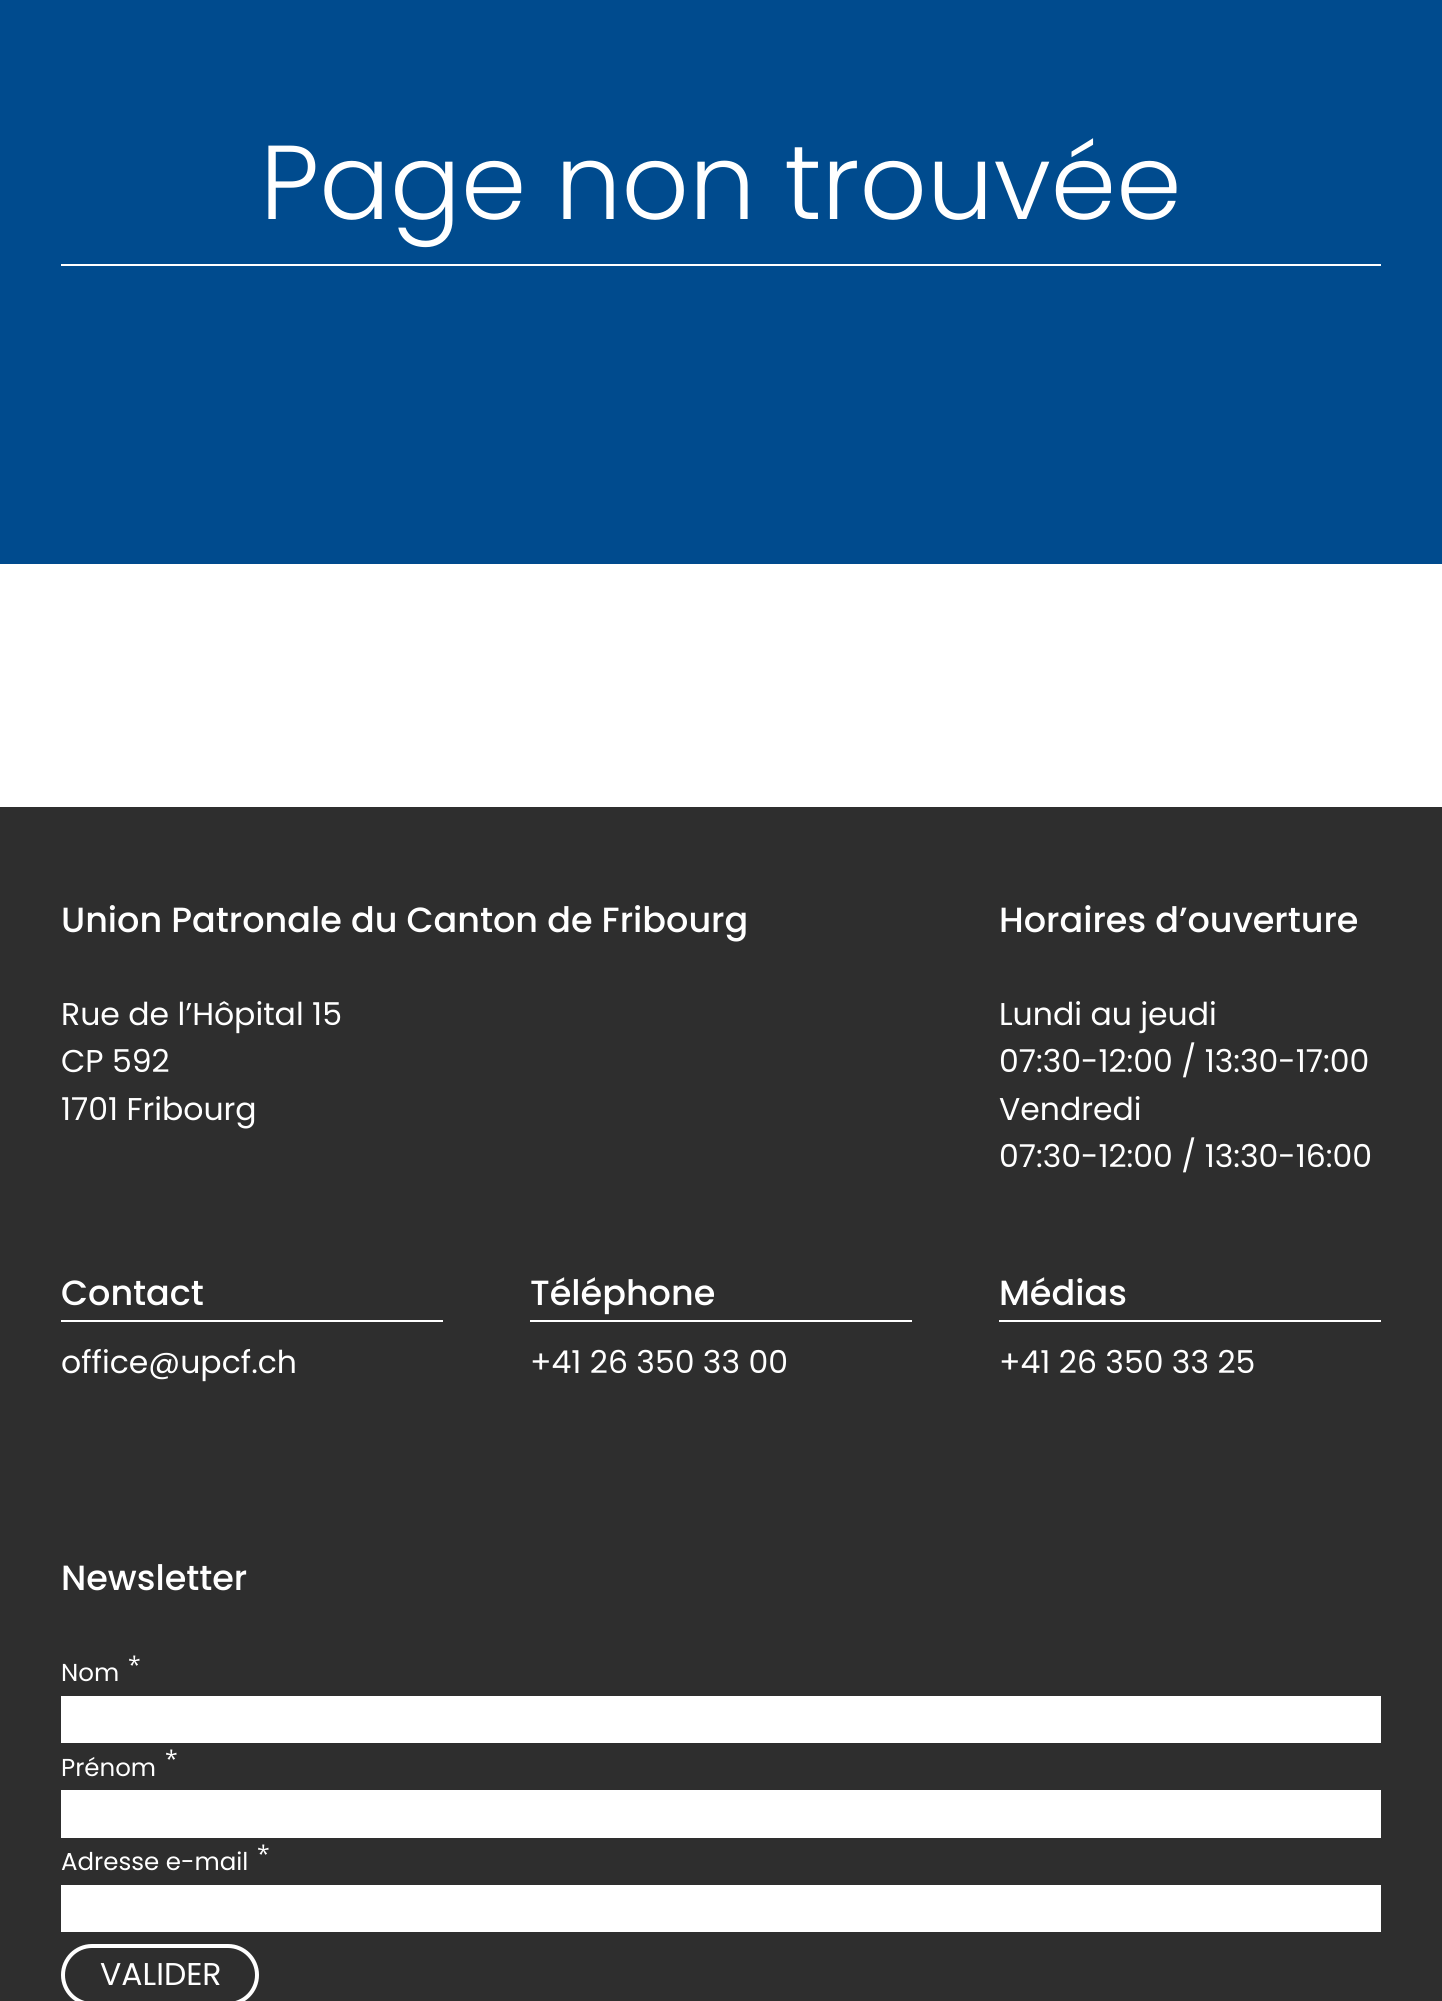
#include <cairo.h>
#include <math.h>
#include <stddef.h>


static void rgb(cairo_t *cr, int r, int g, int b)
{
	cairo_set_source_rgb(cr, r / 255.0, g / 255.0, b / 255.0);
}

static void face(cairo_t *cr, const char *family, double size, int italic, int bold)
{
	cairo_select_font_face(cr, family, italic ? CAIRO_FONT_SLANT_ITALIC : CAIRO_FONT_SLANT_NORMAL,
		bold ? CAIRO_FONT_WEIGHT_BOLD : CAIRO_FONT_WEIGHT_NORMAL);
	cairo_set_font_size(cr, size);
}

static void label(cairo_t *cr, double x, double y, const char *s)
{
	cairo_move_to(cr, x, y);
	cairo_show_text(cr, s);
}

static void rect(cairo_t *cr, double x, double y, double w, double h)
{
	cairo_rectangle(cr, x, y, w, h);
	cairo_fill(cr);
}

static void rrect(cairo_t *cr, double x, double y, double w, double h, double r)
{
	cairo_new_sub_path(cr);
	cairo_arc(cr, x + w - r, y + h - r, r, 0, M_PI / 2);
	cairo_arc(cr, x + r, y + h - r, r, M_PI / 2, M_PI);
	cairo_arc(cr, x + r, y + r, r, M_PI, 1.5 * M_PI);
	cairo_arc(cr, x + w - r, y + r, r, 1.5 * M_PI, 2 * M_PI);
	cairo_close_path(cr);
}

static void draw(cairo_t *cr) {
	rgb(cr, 255, 255, 255);
	cairo_paint(cr);
	rgb(cr, 0, 75, 142);
	rect(cr, 0, 0, 1442, 564);
	face(cr, "Poppins Light", 105, 0, 0);
	rgb(cr, 255, 255, 255);
	label(cr, 260, 219, "Page non trouvée");
	rect(cr, 61, 264, 1320, 2);
	rgb(cr, 46, 46, 46);
	rect(cr, 0, 807, 1442, 1194);
	face(cr, "Poppins Medium", 35, 0, 0);
	rgb(cr, 255, 255, 255);
	label(cr, 61, 932, "Union Patronale du Canton de Fribourg");
	face(cr, "Poppins", 31.5, 0, 0);
	label(cr, 61, 1025, "Rue de l’Hôpital 15");
	label(cr, 61, 1072, "CP 592");
	label(cr, 61, 1120, "1701 Fribourg");
	face(cr, "Poppins Medium", 35, 0, 0);
	label(cr, 999, 932, "Horaires d’ouverture");
	face(cr, "Poppins", 31.5, 0, 0);
	label(cr, 999, 1025, "Lundi au jeudi");
	label(cr, 999, 1072, "07:30-12:00 / 13:30-17:00");
	label(cr, 999, 1120, "Vendredi");
	label(cr, 999, 1167, "07:30-12:00 / 13:30-16:00");
	rect(cr, 61, 1320, 382, 2);
	face(cr, "Poppins Medium", 35, 0, 0);
	label(cr, 61, 1305, "Contact");
	face(cr, "Poppins", 31.5, 0, 0);
	label(cr, 61, 1373, "office@upcf.ch");
	rect(cr, 530, 1320, 382, 2);
	face(cr, "Poppins Medium", 35, 0, 0);
	label(cr, 530, 1305, "Téléphone");
	face(cr, "Poppins", 31.5, 0, 0);
	label(cr, 530, 1373, "+41 26 350 33 00");
	rect(cr, 999, 1320, 382, 2);
	face(cr, "Poppins Medium", 35, 0, 0);
	label(cr, 999, 1305, "Médias");
	face(cr, "Poppins", 31.5, 0, 0);
	label(cr, 999, 1373, "+41 26 350 33 25");
	face(cr, "Poppins Medium", 35, 0, 0);
	label(cr, 61, 1590, "Newsletter");
	face(cr, "Open Sans", 23, 0, 0);
	label(cr, 128, 1673, "*");
	face(cr, "Poppins", 24.5, 0, 0);
	label(cr, 61, 1681, "Nom");
	rect(cr, 61, 1696, 1320, 47);
	face(cr, "Open Sans", 23, 0, 0);
	label(cr, 165, 1767, "*");
	face(cr, "Poppins", 24.5, 0, 0);
	label(cr, 61, 1776, "Prénom");
	rect(cr, 61, 1790, 1320, 48);
	face(cr, "Open Sans", 23, 0, 0);
	label(cr, 257, 1862, "*");
	face(cr, "Poppins", 24.5, 0, 0);
	label(cr, 61, 1870, "Adresse e-mail");
	rect(cr, 61, 1885, 1320, 47);
	rrect(cr, 63, 1946, 194, 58, 29);
	cairo_set_line_width(cr, 4);
	cairo_stroke(cr);
	face(cr, "Poppins", 31.5, 0, 0);
	label(cr, 100, 1985, "VALIDER");
}

int main(void) {
	cairo_surface_t *surface = cairo_image_surface_create(CAIRO_FORMAT_RGB24, 1442, 2001);
	cairo_t *cr = cairo_create(surface);
	cairo_font_options_t *options = cairo_font_options_create();
	cairo_font_options_set_hint_metrics(options, CAIRO_HINT_METRICS_OFF);
	cairo_font_options_set_hint_style(options, CAIRO_HINT_STYLE_NONE);
	cairo_set_font_options(cr, options);
	cairo_set_miter_limit(cr, 4);
	draw(cr);
	cairo_surface_write_to_png(surface, "render.png");
	cairo_font_options_destroy(options);
	cairo_destroy(cr);
	cairo_surface_destroy(surface);
	return 0;
}
